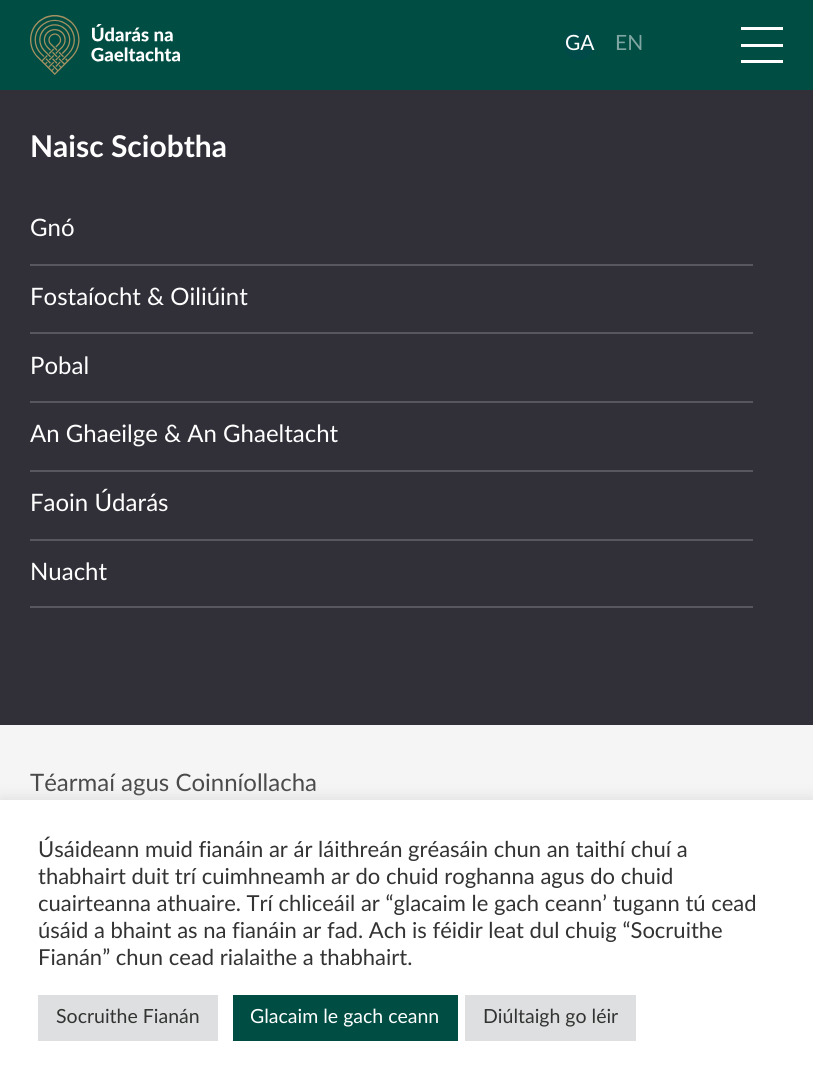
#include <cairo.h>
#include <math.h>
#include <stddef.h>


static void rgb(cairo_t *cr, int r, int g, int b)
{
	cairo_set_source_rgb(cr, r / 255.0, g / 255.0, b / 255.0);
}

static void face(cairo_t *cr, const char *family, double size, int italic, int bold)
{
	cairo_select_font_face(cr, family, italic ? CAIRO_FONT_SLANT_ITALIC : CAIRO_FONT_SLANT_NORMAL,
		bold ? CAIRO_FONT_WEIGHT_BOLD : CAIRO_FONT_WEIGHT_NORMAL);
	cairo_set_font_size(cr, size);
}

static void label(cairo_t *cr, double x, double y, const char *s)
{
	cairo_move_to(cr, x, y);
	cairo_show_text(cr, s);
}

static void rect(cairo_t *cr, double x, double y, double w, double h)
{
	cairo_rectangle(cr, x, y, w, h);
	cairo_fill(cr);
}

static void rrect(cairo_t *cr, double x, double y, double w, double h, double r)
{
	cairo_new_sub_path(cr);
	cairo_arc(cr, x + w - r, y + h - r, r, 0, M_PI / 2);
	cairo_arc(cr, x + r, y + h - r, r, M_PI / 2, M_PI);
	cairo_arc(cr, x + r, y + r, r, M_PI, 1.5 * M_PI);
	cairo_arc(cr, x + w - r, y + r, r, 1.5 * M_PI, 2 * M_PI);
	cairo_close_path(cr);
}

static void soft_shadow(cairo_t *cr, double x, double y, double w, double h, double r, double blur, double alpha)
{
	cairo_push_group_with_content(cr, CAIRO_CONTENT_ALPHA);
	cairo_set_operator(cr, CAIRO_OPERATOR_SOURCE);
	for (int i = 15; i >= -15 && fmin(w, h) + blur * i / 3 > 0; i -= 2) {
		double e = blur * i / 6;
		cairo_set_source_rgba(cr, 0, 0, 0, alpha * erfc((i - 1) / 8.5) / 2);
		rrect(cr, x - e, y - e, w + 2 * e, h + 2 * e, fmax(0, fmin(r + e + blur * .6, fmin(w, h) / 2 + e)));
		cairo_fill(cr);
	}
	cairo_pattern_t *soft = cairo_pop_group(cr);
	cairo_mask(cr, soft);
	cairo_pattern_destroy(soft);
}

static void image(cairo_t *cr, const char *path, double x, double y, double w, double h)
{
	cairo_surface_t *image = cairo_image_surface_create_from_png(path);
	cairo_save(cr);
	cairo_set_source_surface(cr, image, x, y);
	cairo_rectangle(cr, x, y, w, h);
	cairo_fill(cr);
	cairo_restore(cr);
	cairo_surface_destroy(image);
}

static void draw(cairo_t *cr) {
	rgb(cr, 49, 48, 57);
	cairo_paint(cr);
	rgb(cr, 0, 77, 68);
	rect(cr, 0, 0, 813, 90);
	image(cr, "image0.png", 30, 15, 150, 60);
	rgb(cr, 0, 75, 73);
	cairo_arc(cr, 579, 45, 15, 0, 2 * M_PI);
	cairo_fill(cr);
	face(cr, "Lato", 21, 0, 0);
	rgb(cr, 255, 255, 255);
	label(cr, 565, 50, "GA");
	rgb(cr, 128, 166, 162);
	label(cr, 615, 50, "EN");
	rgb(cr, 255, 255, 255);
	rect(cr, 741, 27, 42, 3);
	rect(cr, 741, 44, 42, 3);
	rect(cr, 741, 60, 42, 3);
	face(cr, "Lato", 30, 0, 1);
	label(cr, 30, 157, "Naisc Sciobtha");
	rgb(cr, 88, 87, 95);
	rect(cr, 30, 264, 723, 2);
	face(cr, "Lato", 24, 0, 0);
	rgb(cr, 255, 255, 255);
	label(cr, 30, 236, "Gnó");
	rgb(cr, 88, 87, 95);
	rect(cr, 30, 332, 723, 2);
	rgb(cr, 255, 255, 255);
	label(cr, 30, 305, "Fostaíocht & Oiliúint");
	rgb(cr, 88, 87, 95);
	rect(cr, 30, 401, 723, 2);
	rgb(cr, 255, 255, 255);
	label(cr, 30, 374, "Pobal");
	rgb(cr, 88, 87, 95);
	rect(cr, 30, 470, 723, 2);
	rgb(cr, 255, 255, 255);
	label(cr, 30, 442, "An Ghaeilge & An Ghaeltacht");
	rgb(cr, 88, 87, 95);
	rect(cr, 30, 539, 723, 2);
	rgb(cr, 255, 255, 255);
	label(cr, 30, 511, "Faoin Údarás");
	rgb(cr, 88, 87, 95);
	rect(cr, 30, 606, 723, 2);
	rgb(cr, 255, 255, 255);
	label(cr, 30, 580, "Nuacht");
	rgb(cr, 245, 245, 245);
	rect(cr, 0, 725, 813, 75);
	rgb(cr, 75, 74, 74);
	label(cr, 30, 791, "Téarmaí agus Coinníollacha");
	rgb(cr, 172, 171, 171);
	soft_shadow(cr, 0, 798, 813, 287, 0, 7.5, 0.3);
	rgb(cr, 255, 255, 255);
	rect(cr, 0, 800, 813, 285);
	face(cr, "Lato", 22, 0, 0);
	rgb(cr, 51, 51, 51);
	label(cr, 38, 857, "Úsáideann muid fianáin ar ár láithreán gréasáin chun an taithí chuí a");
	label(cr, 38, 884, "thabhairt duit trí cuimhneamh ar do chuid roghanna agus do chuid");
	label(cr, 38, 911, "cuairteanna athuaire. Trí chliceáil ar “glacaim le gach ceann’ tugann tú cead");
	label(cr, 38, 938, "úsáid a bhaint as na fianáin ar fad. Ach is féidir leat dul chuig “Socruithe");
	label(cr, 38, 965, "Fianán” chun cead rialaithe a thabhairt.");
	rgb(cr, 222, 223, 224);
	rect(cr, 38, 995, 180, 46);
	face(cr, "Lato", 19.5, 0, 0);
	rgb(cr, 51, 51, 51);
	label(cr, 56, 1023, "Socruithe Fianán");
	rgb(cr, 0, 77, 68);
	rect(cr, 233, 995, 225, 46);
	rgb(cr, 255, 255, 255);
	label(cr, 250, 1023, "Glacaim le gach ceann");
	rgb(cr, 222, 223, 224);
	rect(cr, 465, 995, 171, 46);
	rgb(cr, 51, 51, 51);
	label(cr, 483, 1023, "Diúltaigh go léir");
}

int main(void) {
	cairo_surface_t *surface = cairo_image_surface_create(CAIRO_FORMAT_RGB24, 813, 1085);
	cairo_t *cr = cairo_create(surface);
	cairo_font_options_t *options = cairo_font_options_create();
	cairo_font_options_set_hint_metrics(options, CAIRO_HINT_METRICS_OFF);
	cairo_font_options_set_hint_style(options, CAIRO_HINT_STYLE_NONE);
	cairo_set_font_options(cr, options);
	cairo_set_miter_limit(cr, 4);
	draw(cr);
	cairo_surface_write_to_png(surface, "render.png");
	cairo_font_options_destroy(options);
	cairo_destroy(cr);
	cairo_surface_destroy(surface);
	return 0;
}
